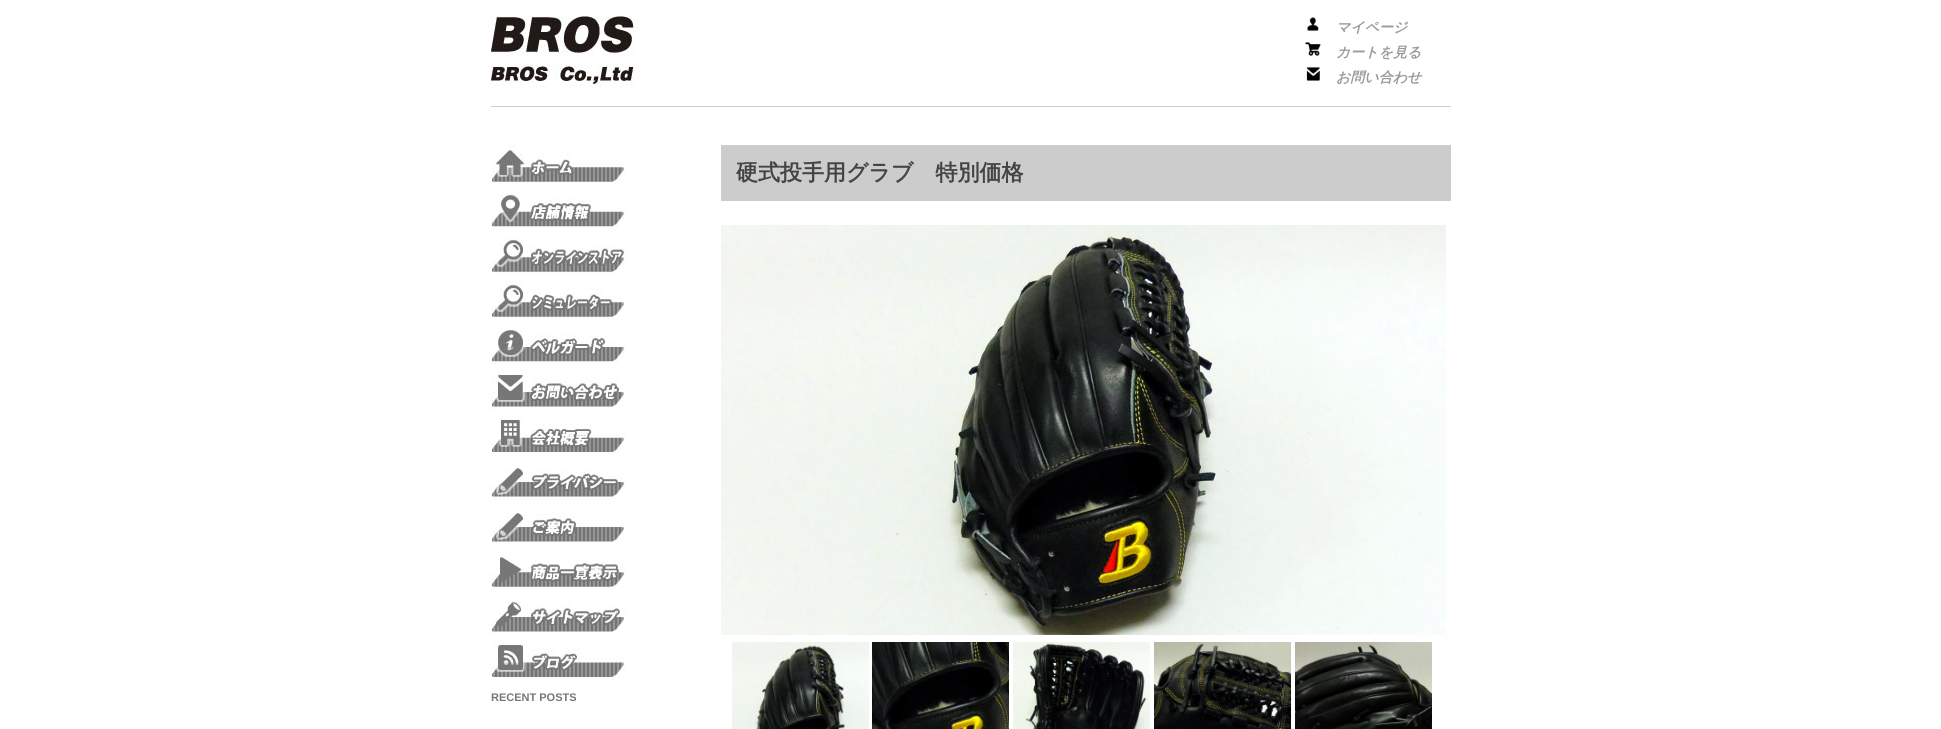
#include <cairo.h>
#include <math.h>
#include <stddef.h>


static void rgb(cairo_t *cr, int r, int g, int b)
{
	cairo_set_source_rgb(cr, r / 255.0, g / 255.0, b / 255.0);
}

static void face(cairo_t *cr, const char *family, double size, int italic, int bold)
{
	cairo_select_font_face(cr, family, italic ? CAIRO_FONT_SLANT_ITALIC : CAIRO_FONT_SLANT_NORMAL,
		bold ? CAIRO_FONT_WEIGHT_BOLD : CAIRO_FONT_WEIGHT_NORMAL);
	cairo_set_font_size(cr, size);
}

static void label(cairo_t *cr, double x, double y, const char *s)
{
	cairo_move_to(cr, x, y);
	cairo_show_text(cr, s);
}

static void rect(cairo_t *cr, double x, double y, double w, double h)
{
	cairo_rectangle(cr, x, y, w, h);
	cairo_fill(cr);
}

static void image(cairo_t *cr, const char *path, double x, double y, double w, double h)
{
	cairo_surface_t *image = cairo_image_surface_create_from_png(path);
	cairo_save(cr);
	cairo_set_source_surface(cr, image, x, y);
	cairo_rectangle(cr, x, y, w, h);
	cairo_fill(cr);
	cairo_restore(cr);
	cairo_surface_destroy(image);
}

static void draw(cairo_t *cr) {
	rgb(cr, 255, 255, 255);
	cairo_paint(cr);
	image(cr, "image0.png", 491, 16, 144, 72);
	image(cr, "image1.png", 1305, 17, 15, 14);
	face(cr, "WenQuanYi Zen Hei", 14, 1, 1);
	rgb(cr, 153, 153, 153);
	label(cr, 1336, 32, "マイページ");
	image(cr, "image2.png", 1304, 42, 17, 15);
	label(cr, 1336, 57, "カートを見る");
	image(cr, "image3.png", 1304, 66, 17, 15);
	label(cr, 1336, 82, "お問い合わせ");
	rgb(cr, 204, 204, 204);
	rect(cr, 491, 106, 960, 1);
	rect(cr, 721, 145, 730, 56);
	face(cr, "WenQuanYi Zen Hei", 22, 0, 1);
	rgb(cr, 68, 68, 68);
	label(cr, 736, 180, "硬式投手用グラブ　特別価格");
	image(cr, "image4.png", 721, 225, 725, 410);
	image(cr, "image5.png", 732, 642, 137, 87);
	image(cr, "image6.png", 872, 642, 137, 87);
	image(cr, "image7.png", 1013, 642, 137, 87);
	image(cr, "image8.png", 1154, 642, 137, 87);
	image(cr, "image9.png", 1295, 642, 137, 87);
	image(cr, "image10.png", 491, 145, 136, 40);
	image(cr, "image11.png", 491, 191, 135, 39);
	image(cr, "image12.png", 491, 236, 136, 39);
	image(cr, "image13.png", 491, 281, 135, 39);
	image(cr, "image14.png", 491, 326, 135, 39);
	image(cr, "image15.png", 491, 370, 135, 40);
	image(cr, "image16.png", 491, 415, 135, 40);
	image(cr, "image17.png", 491, 468, 135, 32);
	image(cr, "image18.png", 491, 513, 135, 32);
	image(cr, "image19.png", 491, 552, 135, 38);
	image(cr, "image20.png", 491, 595, 136, 40);
	image(cr, "image21.png", 491, 640, 135, 40);
	face(cr, "Liberation Sans", 11, 0, 1);
	rgb(cr, 119, 119, 119);
	label(cr, 491, 701, "RECENT POSTS");
}

int main(void) {
	cairo_surface_t *surface = cairo_image_surface_create(CAIRO_FORMAT_RGB24, 1941, 729);
	cairo_t *cr = cairo_create(surface);
	cairo_font_options_t *options = cairo_font_options_create();
	cairo_font_options_set_hint_metrics(options, CAIRO_HINT_METRICS_OFF);
	cairo_font_options_set_hint_style(options, CAIRO_HINT_STYLE_NONE);
	cairo_set_font_options(cr, options);
	cairo_set_miter_limit(cr, 4);
	draw(cr);
	cairo_surface_write_to_png(surface, "render.png");
	cairo_font_options_destroy(options);
	cairo_destroy(cr);
	cairo_surface_destroy(surface);
	return 0;
}
